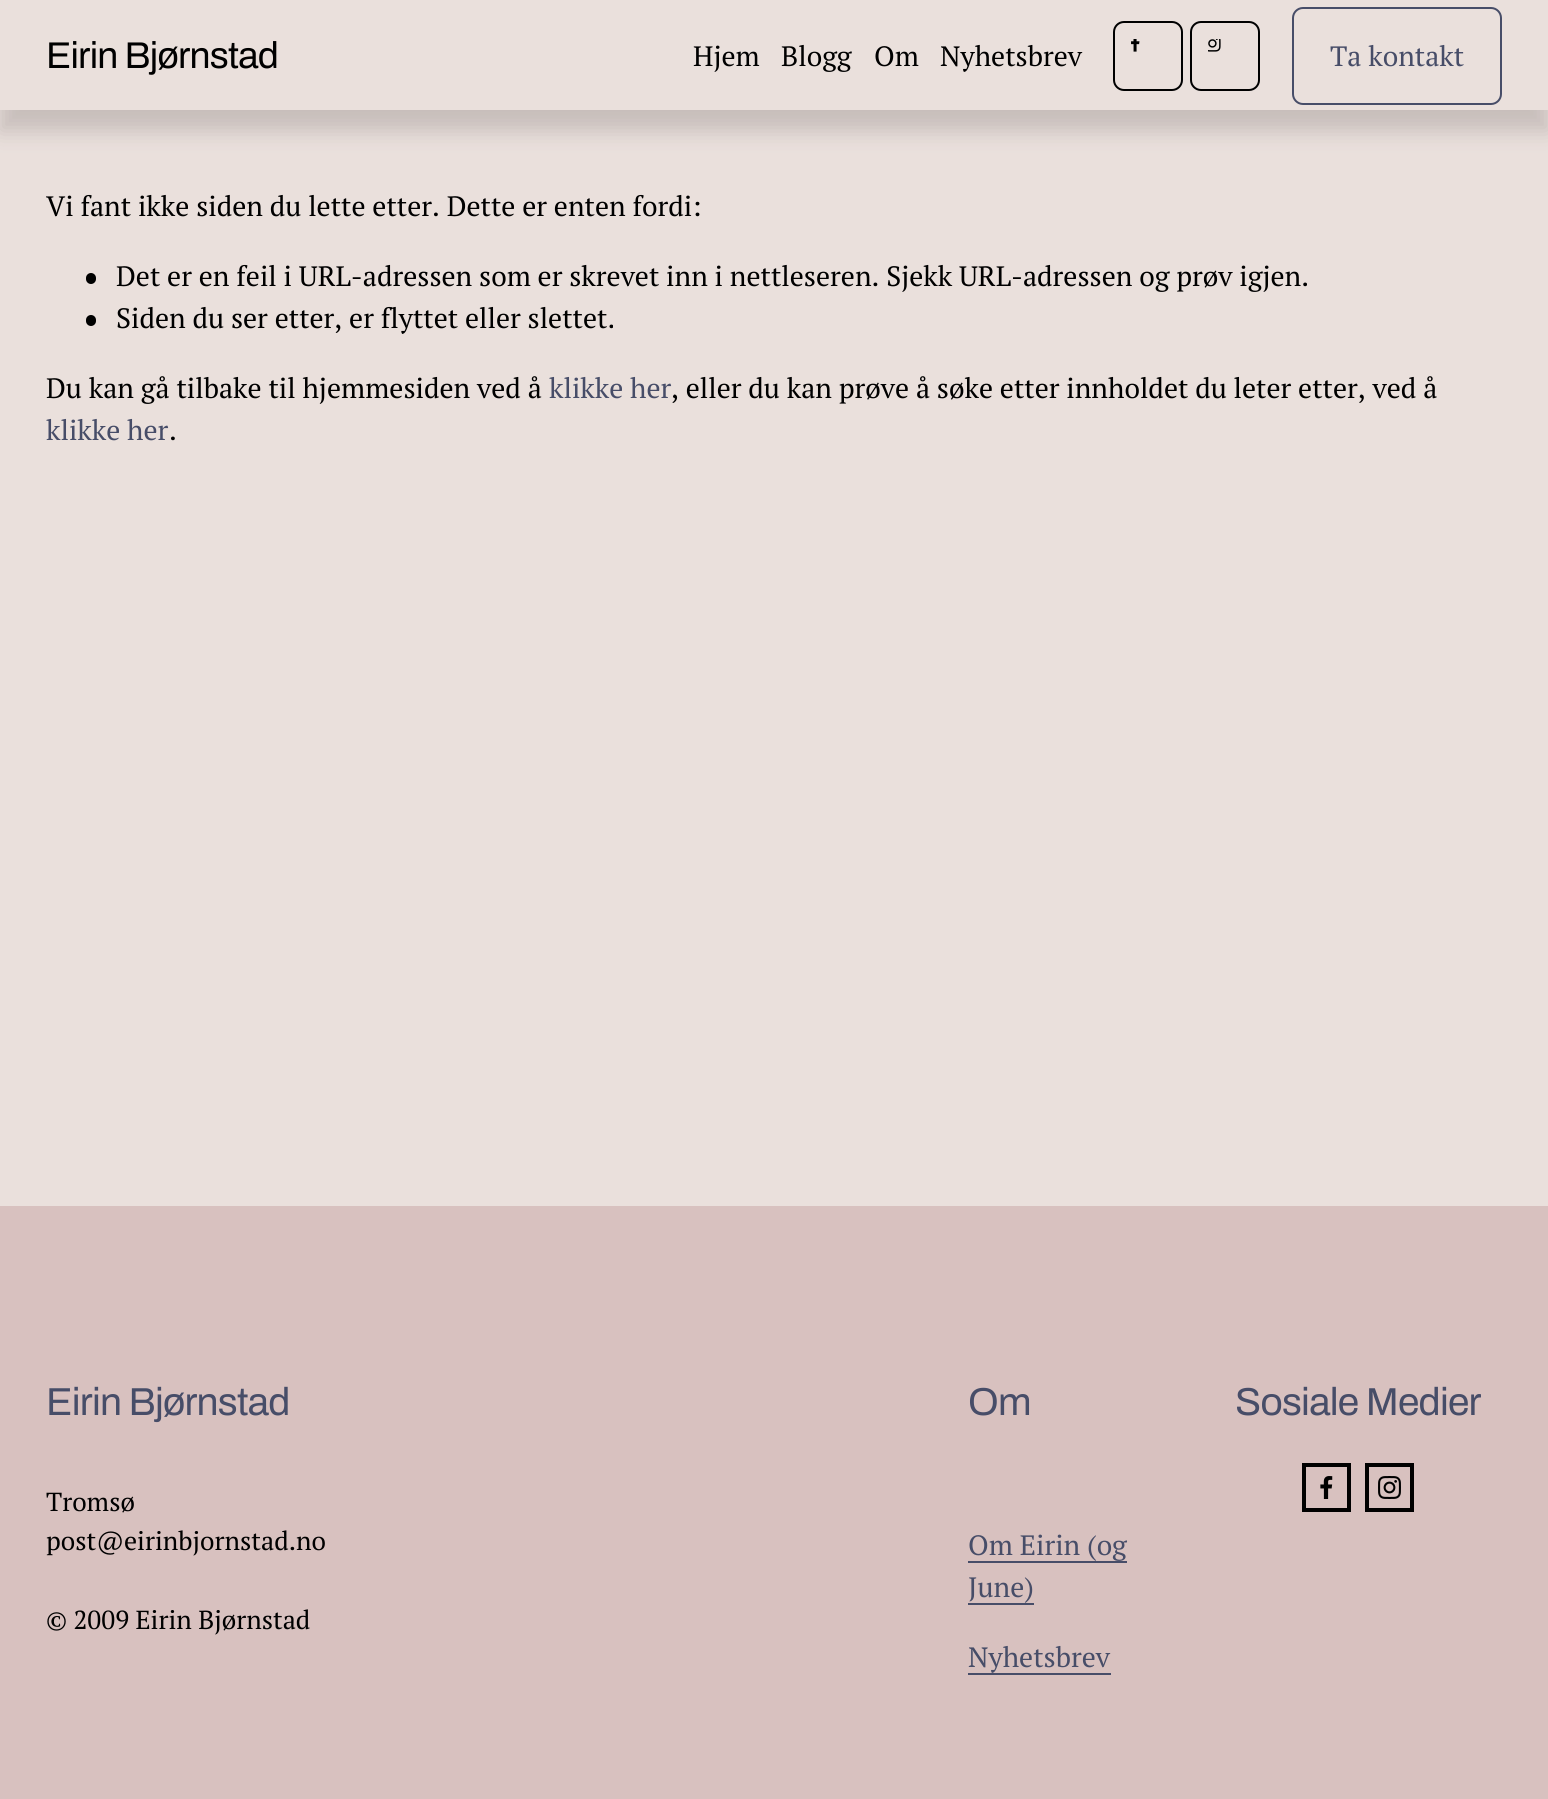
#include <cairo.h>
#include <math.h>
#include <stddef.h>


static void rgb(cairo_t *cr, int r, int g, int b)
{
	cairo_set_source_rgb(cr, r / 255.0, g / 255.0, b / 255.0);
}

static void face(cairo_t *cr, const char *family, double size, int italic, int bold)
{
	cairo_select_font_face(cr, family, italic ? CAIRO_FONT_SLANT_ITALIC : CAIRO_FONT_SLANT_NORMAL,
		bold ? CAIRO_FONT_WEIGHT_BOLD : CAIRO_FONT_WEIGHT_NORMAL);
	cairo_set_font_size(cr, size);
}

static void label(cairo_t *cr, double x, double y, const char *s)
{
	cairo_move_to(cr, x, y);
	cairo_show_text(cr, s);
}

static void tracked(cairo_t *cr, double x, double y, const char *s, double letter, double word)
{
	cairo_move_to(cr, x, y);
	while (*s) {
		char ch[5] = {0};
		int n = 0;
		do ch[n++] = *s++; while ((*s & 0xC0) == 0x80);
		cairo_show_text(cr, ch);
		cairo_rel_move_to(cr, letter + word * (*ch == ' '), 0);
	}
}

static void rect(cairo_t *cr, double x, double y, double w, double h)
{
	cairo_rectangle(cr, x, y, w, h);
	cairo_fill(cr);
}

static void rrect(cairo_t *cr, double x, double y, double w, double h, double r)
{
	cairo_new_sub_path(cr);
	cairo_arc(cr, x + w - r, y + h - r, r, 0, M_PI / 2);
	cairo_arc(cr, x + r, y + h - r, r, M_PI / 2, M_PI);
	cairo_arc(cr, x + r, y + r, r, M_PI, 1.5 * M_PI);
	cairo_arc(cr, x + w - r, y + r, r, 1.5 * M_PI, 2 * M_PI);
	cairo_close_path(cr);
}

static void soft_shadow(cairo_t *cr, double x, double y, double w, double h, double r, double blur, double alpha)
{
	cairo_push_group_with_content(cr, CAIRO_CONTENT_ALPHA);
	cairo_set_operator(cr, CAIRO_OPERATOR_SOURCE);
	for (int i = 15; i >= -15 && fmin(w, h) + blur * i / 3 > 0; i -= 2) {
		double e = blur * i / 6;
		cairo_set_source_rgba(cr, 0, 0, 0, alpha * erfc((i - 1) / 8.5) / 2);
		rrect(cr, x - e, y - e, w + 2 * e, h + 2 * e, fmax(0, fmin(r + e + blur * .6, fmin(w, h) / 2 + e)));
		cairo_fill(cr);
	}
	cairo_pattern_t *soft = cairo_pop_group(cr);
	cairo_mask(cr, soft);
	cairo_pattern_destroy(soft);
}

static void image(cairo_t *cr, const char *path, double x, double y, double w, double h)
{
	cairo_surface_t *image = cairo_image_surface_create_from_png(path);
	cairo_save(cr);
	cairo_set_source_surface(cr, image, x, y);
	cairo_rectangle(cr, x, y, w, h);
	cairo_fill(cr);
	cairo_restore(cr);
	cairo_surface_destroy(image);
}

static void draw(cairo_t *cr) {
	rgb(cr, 234, 224, 220);
	cairo_paint(cr);
	cairo_save(cr);
	cairo_rectangle(cr, 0, 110, 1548, 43);
	cairo_clip(cr);
	rgb(cr, 199, 190, 187);
	soft_shadow(cr, 0, 21, 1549, 110, 0, 10.5, 1);
	cairo_restore(cr);
	face(cr, "Archivo", 37.25, 0, 0);
	rgb(cr, 0, 0, 0);
	tracked(cr, 46, 68, "Eirin Bjørnstad", -0.75, 0);
	face(cr, "PT Serif", 28, 0, 0);
	label(cr, 693, 66, "Hjem");
	label(cr, 781, 66, "Blogg");
	label(cr, 874, 66, "Om");
	label(cr, 940, 66, "Nyhetsbrev");
	rrect(cr, 1114, 22, 68, 68, 10);
	cairo_stroke(cr);
	image(cr, "image0.png", 1131, 39, 9, 13);
	rrect(cr, 1191, 22, 68, 68, 10);
	cairo_stroke(cr);
	image(cr, "image1.png", 1208, 39, 13, 13);
	rrect(cr, 1293, 8, 208, 96, 10);
	rgb(cr, 71, 77, 104);
	cairo_stroke(cr);
	label(cr, 1330, 66, "Ta kontakt");
	rgb(cr, 0, 0, 0);
	label(cr, 46, 216, "Vi fant ikke siden du lette etter. Dette er enten fordi:");
	rrect(cr, 86, 273, 10, 11, 5);
	cairo_fill(cr);
	label(cr, 116, 286, "Det er en feil i URL-adressen som er skrevet inn i nettleseren. Sjekk URL-adressen og prøv igjen.");
	rrect(cr, 86, 315, 10, 11, 5);
	cairo_fill(cr);
	label(cr, 116, 328, "Siden du ser etter, er flyttet eller slettet.");
	label(cr, 46, 398, "Du kan gå tilbake til hjemmesiden ved å");
	rgb(cr, 71, 77, 104);
	label(cr, 549, 398, "klikke her");
	rgb(cr, 0, 0, 0);
	label(cr, 671, 398, ", eller du kan prøve å søke etter innholdet du leter etter, ved å");
	rgb(cr, 71, 77, 104);
	label(cr, 46, 440, "klikke her");
	rgb(cr, 0, 0, 0);
	label(cr, 169, 440, ".");
	rgb(cr, 216, 193, 191);
	rect(cr, 0, 1206, 1548, 593);
	face(cr, "Archivo", 39, 0, 0);
	rgb(cr, 71, 77, 104);
	tracked(cr, 46, 1415, "Eirin Bjørnstad", -0.75, 0);
	face(cr, "PT Serif", 26.1, 0, 0);
	rgb(cr, 0, 0, 0);
	label(cr, 46, 1511, "Tromsø");
	label(cr, 46, 1550, "post@eirinbjornstad.no");
	label(cr, 46, 1629, "© 2009 Eirin Bjørnstad");
	face(cr, "Archivo", 39, 0, 0);
	rgb(cr, 71, 77, 104);
	tracked(cr, 968, 1415, "Om", -0.75, 0);
	face(cr, "PT Serif", 28, 0, 0);
	label(cr, 968, 1555, "Om Eirin (og");
	rect(cr, 968, 1561, 159, 2);
	label(cr, 968, 1597, "June)");
	rect(cr, 968, 1603, 66, 2);
	label(cr, 968, 1667, "Nyhetsbrev");
	rect(cr, 968, 1673, 143, 2);
	face(cr, "Archivo", 39, 0, 0);
	tracked(cr, 1235, 1415, "Sosiale Medier", -0.75, 0);
	cairo_rectangle(cr, 1304, 1465, 45, 45);
	rgb(cr, 0, 0, 0);
	cairo_set_line_width(cr, 4);
	cairo_stroke(cr);
	image(cr, "image2.png", 1320, 1476, 13, 23);
	cairo_rectangle(cr, 1367, 1465, 45, 45);
	cairo_stroke(cr);
	image(cr, "image3.png", 1378, 1476, 23, 23);
}

int main(void) {
	cairo_surface_t *surface = cairo_image_surface_create(CAIRO_FORMAT_RGB24, 1548, 1799);
	cairo_t *cr = cairo_create(surface);
	cairo_font_options_t *options = cairo_font_options_create();
	cairo_font_options_set_hint_metrics(options, CAIRO_HINT_METRICS_OFF);
	cairo_font_options_set_hint_style(options, CAIRO_HINT_STYLE_NONE);
	cairo_set_font_options(cr, options);
	cairo_set_miter_limit(cr, 4);
	draw(cr);
	cairo_surface_write_to_png(surface, "render.png");
	cairo_font_options_destroy(options);
	cairo_destroy(cr);
	cairo_surface_destroy(surface);
	return 0;
}
